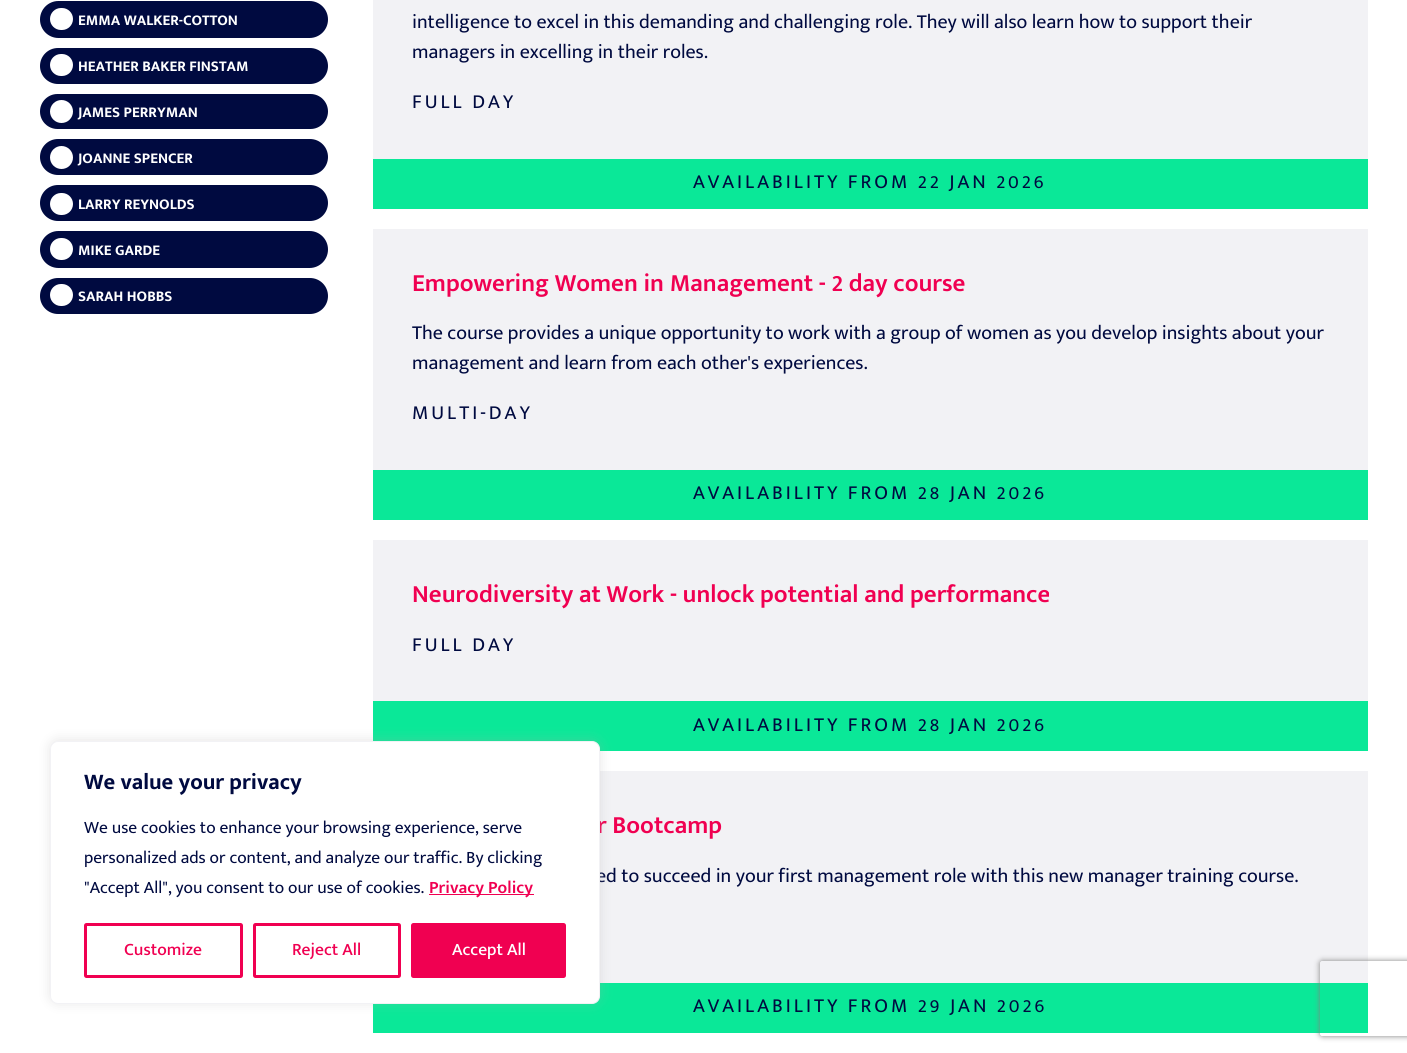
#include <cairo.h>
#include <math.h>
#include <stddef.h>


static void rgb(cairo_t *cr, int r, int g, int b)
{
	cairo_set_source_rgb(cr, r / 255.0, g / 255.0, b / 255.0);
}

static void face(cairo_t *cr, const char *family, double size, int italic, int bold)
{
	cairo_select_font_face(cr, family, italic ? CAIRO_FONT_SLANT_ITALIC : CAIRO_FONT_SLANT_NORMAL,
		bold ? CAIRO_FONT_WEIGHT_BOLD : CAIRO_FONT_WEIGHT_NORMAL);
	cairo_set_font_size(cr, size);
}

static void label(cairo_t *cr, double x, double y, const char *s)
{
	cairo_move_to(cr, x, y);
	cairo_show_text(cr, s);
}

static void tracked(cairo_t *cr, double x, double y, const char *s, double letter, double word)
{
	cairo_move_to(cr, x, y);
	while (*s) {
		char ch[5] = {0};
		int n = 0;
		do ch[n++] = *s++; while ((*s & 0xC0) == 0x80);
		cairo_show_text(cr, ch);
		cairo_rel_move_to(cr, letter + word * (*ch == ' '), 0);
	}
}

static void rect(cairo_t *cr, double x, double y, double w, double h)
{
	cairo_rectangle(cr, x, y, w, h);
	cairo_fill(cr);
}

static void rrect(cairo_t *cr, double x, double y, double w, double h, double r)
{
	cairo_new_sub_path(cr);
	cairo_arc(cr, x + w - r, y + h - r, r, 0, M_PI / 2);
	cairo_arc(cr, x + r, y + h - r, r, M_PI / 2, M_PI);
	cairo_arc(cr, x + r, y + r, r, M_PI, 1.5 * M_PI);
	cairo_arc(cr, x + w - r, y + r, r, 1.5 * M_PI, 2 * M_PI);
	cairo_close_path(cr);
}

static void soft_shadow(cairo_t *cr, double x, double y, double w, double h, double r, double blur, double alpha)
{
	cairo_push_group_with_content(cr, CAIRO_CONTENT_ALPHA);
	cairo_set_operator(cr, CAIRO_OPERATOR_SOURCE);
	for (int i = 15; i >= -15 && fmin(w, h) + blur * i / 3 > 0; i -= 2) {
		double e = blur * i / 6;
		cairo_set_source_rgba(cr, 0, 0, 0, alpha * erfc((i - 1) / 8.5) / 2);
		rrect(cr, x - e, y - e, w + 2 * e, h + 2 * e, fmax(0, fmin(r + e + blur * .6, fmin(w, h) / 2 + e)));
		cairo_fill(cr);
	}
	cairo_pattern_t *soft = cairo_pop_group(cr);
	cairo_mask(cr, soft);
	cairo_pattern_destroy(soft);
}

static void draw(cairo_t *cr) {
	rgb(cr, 255, 255, 255);
	cairo_paint(cr);
	rgb(cr, 0, 10, 64);
	rrect(cr, 40, 1, 288, 37, 18.5);
	cairo_fill(cr);
	rgb(cr, 255, 255, 255);
	rrect(cr, 50, 8, 23, 22, 11);
	cairo_fill(cr);
	face(cr, "Mukta Mahee", 15, 0, 1);
	label(cr, 78, 25, "EMMA WALKER-COTTON");
	rgb(cr, 0, 10, 64);
	rrect(cr, 40, 48, 288, 36, 18);
	cairo_fill(cr);
	rgb(cr, 255, 255, 255);
	rrect(cr, 50, 54, 23, 22, 11);
	cairo_fill(cr);
	label(cr, 78, 71, "HEATHER BAKER FINSTAM");
	rgb(cr, 0, 10, 64);
	rrect(cr, 40, 94, 288, 35, 17.5);
	cairo_fill(cr);
	rgb(cr, 255, 255, 255);
	cairo_arc(cr, 61.5, 111.5, 11.5, 0, 2 * M_PI);
	cairo_fill(cr);
	label(cr, 78, 117, "JAMES PERRYMAN");
	rgb(cr, 0, 10, 64);
	rrect(cr, 40, 139, 288, 36, 18);
	cairo_fill(cr);
	rgb(cr, 255, 255, 255);
	cairo_arc(cr, 61.5, 157.5, 11.5, 0, 2 * M_PI);
	cairo_fill(cr);
	label(cr, 78, 163, "JOANNE SPENCER");
	rgb(cr, 0, 10, 64);
	rrect(cr, 40, 185, 288, 36, 18);
	cairo_fill(cr);
	rgb(cr, 255, 255, 255);
	rrect(cr, 50, 193, 23, 22, 11);
	cairo_fill(cr);
	label(cr, 78, 209, "LARRY REYNOLDS");
	rgb(cr, 0, 10, 64);
	rrect(cr, 40, 231, 288, 37, 18.5);
	cairo_fill(cr);
	rgb(cr, 255, 255, 255);
	rrect(cr, 50, 238, 23, 22, 11);
	cairo_fill(cr);
	label(cr, 78, 255, "MIKE GARDE");
	rgb(cr, 0, 10, 64);
	rrect(cr, 40, 278, 288, 36, 18);
	cairo_fill(cr);
	rgb(cr, 255, 255, 255);
	rrect(cr, 50, 284, 23, 22, 11);
	cairo_fill(cr);
	label(cr, 78, 301, "SARAH HOBBS");
	rgb(cr, 242, 242, 245);
	rect(cr, 373, 0, 995, 159);
	face(cr, "Mukta Mahee", 20, 0, 0);
	rgb(cr, 0, 10, 64);
	label(cr, 412, 28, "intelligence to excel in this demanding and challenging role. They will also learn how to support their");
	label(cr, 412, 58, "managers in excelling in their roles.");
	tracked(cr, 412, 108, "FULL DAY", 3, 0);
	rgb(cr, 10, 232, 152);
	rect(cr, 373, 159, 995, 50);
	rgb(cr, 0, 10, 64);
	tracked(cr, 693, 188, "AVAILABILITY FROM 22 JAN 2026", 3, 0);
	rgb(cr, 242, 242, 245);
	rect(cr, 373, 229, 995, 241);
	face(cr, "Mukta Mahee SemiBold", 25, 0, 0);
	rgb(cr, 240, 0, 81);
	label(cr, 412, 291, "Empowering Women in Management - 2 day course");
	face(cr, "Mukta Mahee", 20, 0, 0);
	rgb(cr, 0, 10, 64);
	label(cr, 412, 339, "The course provides a unique opportunity to work with a group of women as you develop insights about your");
	label(cr, 412, 369, "management and learn from each other's experiences.");
	tracked(cr, 412, 419, "MULTI-DAY", 3, 0);
	rgb(cr, 10, 232, 152);
	rect(cr, 373, 470, 995, 50);
	rgb(cr, 0, 10, 64);
	tracked(cr, 693, 499, "AVAILABILITY FROM 28 JAN 2026", 3, 0);
	rgb(cr, 242, 242, 245);
	rect(cr, 373, 540, 995, 161);
	face(cr, "Mukta Mahee SemiBold", 25, 0, 0);
	rgb(cr, 240, 0, 81);
	label(cr, 412, 602, "Neurodiversity at Work - unlock potential and performance");
	face(cr, "Mukta Mahee", 20, 0, 0);
	rgb(cr, 0, 10, 64);
	tracked(cr, 412, 651, "FULL DAY", 3, 0);
	rgb(cr, 10, 232, 152);
	rect(cr, 373, 701, 995, 50);
	rgb(cr, 0, 10, 64);
	tracked(cr, 693, 731, "AVAILABILITY FROM 28 JAN 2026", 3, 0);
	rgb(cr, 242, 242, 245);
	rect(cr, 600, 771, 768, 212);
	face(cr, "Mukta Mahee SemiBold", 25, 0, 0);
	rgb(cr, 240, 0, 81);
	label(cr, 597, 833, "r Bootcamp");
	face(cr, "Mukta Mahee", 20, 0, 0);
	rgb(cr, 0, 10, 64);
	label(cr, 596, 882, "ed to succeed in your first management role with this new manager training course.");
	rgb(cr, 10, 232, 152);
	rect(cr, 373, 983, 995, 50);
	rgb(cr, 0, 10, 64);
	tracked(cr, 693, 1012, "AVAILABILITY FROM 29 JAN 2026", 3, 0);
	rgb(cr, 172, 171, 171);
	soft_shadow(cr, 50, 740, 550, 263, 8, 6, 0.3);
	rgb(cr, 255, 255, 255);
	rrect(cr, 50.5, 741.5, 549, 262, 7.5);
	cairo_fill_preserve(cr);
	rgb(cr, 242, 242, 245);
	cairo_set_line_width(cr, 1);
	cairo_stroke(cr);
	face(cr, "Mukta Mahee", 22.5, 0, 1);
	rgb(cr, 0, 10, 64);
	label(cr, 84, 789, "We value your privacy");
	face(cr, "Mukta Mahee", 17.5, 0, 0);
	label(cr, 84, 833, "We use cookies to enhance your browsing experience, serve");
	label(cr, 84, 863, "personalized ads or content, and analyze our traffic. By clicking");
	label(cr, 84, 893, "\"Accept All\", you consent to our use of cookies.");
	rgb(cr, 240, 0, 81);
	rect(cr, 429, 894, 105, 1);
	face(cr, "Mukta Mahee SemiBold", 17.5, 0, 0);
	label(cr, 429, 893, "Privacy Policy");
	rrect(cr, 85.5, 924.5, 156, 52, 1);
	cairo_set_line_width(cr, 3);
	cairo_stroke(cr);
	face(cr, "Mukta Mahee Medium", 17.5, 0, 0);
	label(cr, 124, 955, "Customize");
	rrect(cr, 254.5, 924.5, 145, 52, 1);
	cairo_stroke(cr);
	label(cr, 292, 955, "Reject All");
	rrect(cr, 412.5, 924.5, 152, 52, 1);
	cairo_fill_preserve(cr);
	cairo_stroke(cr);
	rgb(cr, 255, 255, 255);
	label(cr, 452, 955, "Accept All");
	cairo_save(cr);
	cairo_set_fill_rule(cr, CAIRO_FILL_RULE_EVEN_ODD);
	cairo_new_path(cr);
	cairo_move_to(cr, 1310, 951);
	cairo_line_to(cr, 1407, 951);
	cairo_line_to(cr, 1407, 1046);
	cairo_line_to(cr, 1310, 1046);
	cairo_close_path(cr);
	cairo_move_to(cr, 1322.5, 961);
	cairo_line_to(cr, 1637.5, 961);
	cairo_curve_to(cr, 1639, 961, 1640, 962, 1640, 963.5);
	cairo_line_to(cr, 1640, 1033.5);
	cairo_curve_to(cr, 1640, 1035, 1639, 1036, 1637.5, 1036);
	cairo_line_to(cr, 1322.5, 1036);
	cairo_curve_to(cr, 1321, 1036, 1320, 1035, 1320, 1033.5);
	cairo_line_to(cr, 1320, 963.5);
	cairo_curve_to(cr, 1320, 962, 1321, 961, 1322.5, 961);
	cairo_close_path(cr);
	cairo_clip(cr);
	rgb(cr, 128, 128, 128);
	soft_shadow(cr, 1320, 961, 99, 75, 2.5, 3, 1);
	cairo_restore(cr);
}

int main(void) {
	cairo_surface_t *surface = cairo_image_surface_create(CAIRO_FORMAT_RGB24, 1407, 1053);
	cairo_t *cr = cairo_create(surface);
	cairo_font_options_t *options = cairo_font_options_create();
	cairo_font_options_set_hint_metrics(options, CAIRO_HINT_METRICS_OFF);
	cairo_font_options_set_hint_style(options, CAIRO_HINT_STYLE_NONE);
	cairo_set_font_options(cr, options);
	cairo_set_miter_limit(cr, 4);
	draw(cr);
	cairo_surface_write_to_png(surface, "render.png");
	cairo_font_options_destroy(options);
	cairo_destroy(cr);
	cairo_surface_destroy(surface);
	return 0;
}
